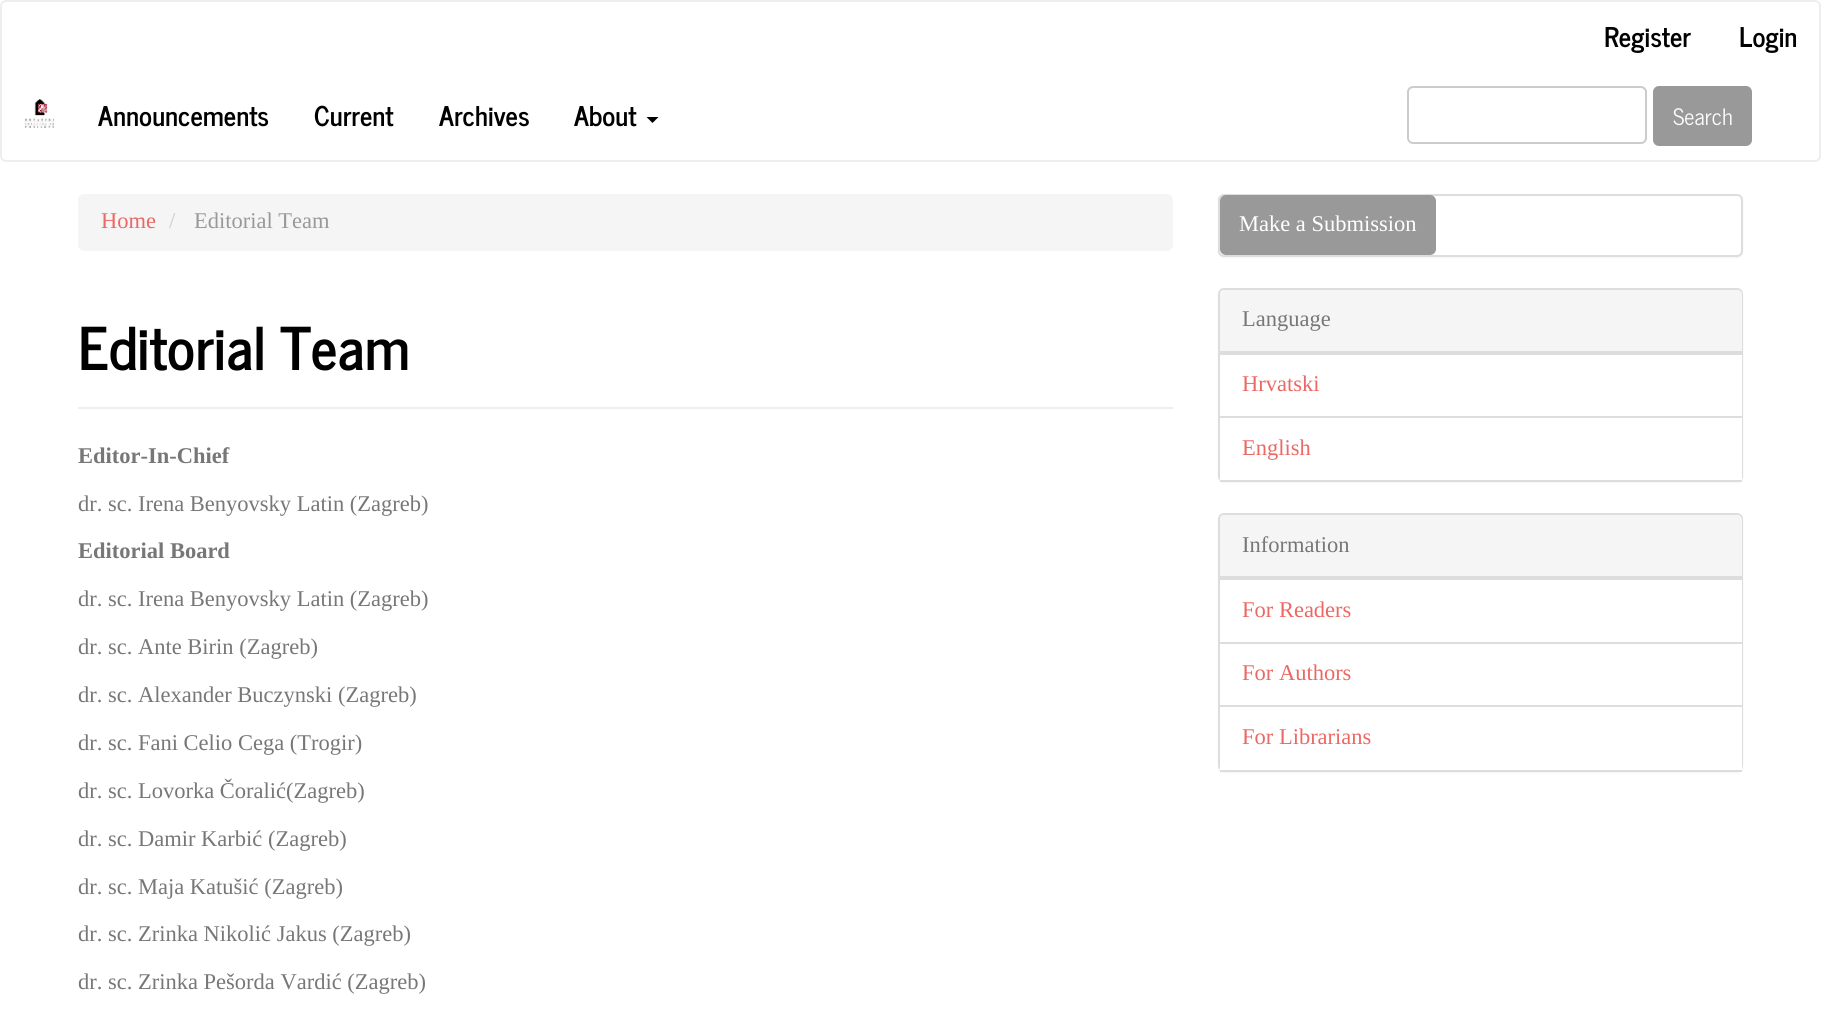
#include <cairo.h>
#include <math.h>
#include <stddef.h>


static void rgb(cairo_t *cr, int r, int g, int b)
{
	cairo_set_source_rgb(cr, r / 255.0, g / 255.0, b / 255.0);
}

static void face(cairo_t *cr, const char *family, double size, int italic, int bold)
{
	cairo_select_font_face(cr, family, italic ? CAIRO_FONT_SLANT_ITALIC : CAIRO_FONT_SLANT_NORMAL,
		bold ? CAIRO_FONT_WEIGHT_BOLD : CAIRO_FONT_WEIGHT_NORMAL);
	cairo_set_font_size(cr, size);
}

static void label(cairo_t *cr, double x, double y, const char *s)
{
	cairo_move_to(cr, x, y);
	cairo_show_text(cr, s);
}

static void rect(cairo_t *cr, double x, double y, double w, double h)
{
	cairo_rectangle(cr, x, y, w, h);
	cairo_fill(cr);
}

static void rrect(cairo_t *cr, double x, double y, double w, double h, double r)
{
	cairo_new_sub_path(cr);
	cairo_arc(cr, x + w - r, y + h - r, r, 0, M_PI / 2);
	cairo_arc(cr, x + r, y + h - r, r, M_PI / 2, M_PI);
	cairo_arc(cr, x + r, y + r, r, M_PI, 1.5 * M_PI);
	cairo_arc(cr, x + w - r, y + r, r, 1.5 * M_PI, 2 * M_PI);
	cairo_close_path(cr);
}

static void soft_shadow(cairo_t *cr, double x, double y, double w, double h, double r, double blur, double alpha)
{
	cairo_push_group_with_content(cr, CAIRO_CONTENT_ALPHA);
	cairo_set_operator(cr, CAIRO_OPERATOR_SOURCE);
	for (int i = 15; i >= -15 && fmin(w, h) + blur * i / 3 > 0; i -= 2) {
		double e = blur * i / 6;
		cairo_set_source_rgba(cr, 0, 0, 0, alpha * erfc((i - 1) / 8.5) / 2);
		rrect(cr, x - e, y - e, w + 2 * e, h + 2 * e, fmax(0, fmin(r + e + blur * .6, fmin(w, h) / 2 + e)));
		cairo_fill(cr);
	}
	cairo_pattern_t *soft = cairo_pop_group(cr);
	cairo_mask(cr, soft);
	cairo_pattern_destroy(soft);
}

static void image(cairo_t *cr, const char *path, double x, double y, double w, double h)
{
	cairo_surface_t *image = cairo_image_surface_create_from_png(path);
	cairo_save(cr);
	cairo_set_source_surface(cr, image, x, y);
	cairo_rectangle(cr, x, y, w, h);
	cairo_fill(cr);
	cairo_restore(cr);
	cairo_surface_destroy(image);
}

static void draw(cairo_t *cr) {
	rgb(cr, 255, 255, 255);
	cairo_paint(cr);
	rrect(cr, 1, 1, 1819, 160, 5);
	rgb(cr, 238, 238, 238);
	cairo_stroke(cr);
	face(cr, "News Cycle", 27, 0, 1);
	rgb(cr, 0, 0, 0);
	label(cr, 1604, 47, "Register");
	label(cr, 1739, 47, "Login");
	image(cr, "image0.png", 24, 99, 30, 30);
	label(cr, 98, 126, "Announcements");
	label(cr, 314, 126, "Current");
	label(cr, 439, 126, "Archives");
	label(cr, 574, 126, "About");
	cairo_new_path(cr);
	cairo_move_to(cr, 646.5, 117);
	cairo_line_to(cr, 658.5, 117);
	cairo_line_to(cr, 652.5, 123);
	cairo_close_path(cr);
	cairo_fill(cr);
	rgb(cr, 236, 236, 236);
	cairo_new_path(cr);
	cairo_move_to(cr, 1413, 88);
	cairo_line_to(cr, 1641, 88);
	cairo_curve_to(cr, 1643, 88, 1646, 91, 1646, 93);
	cairo_line_to(cr, 1646, 92);
	cairo_curve_to(cr, 1646, 89, 1644, 87, 1641, 87);
	cairo_line_to(cr, 1414, 87);
	cairo_curve_to(cr, 1412, 87, 1410, 88, 1409, 90);
	cairo_curve_to(cr, 1410, 89, 1412, 88, 1413, 88);
	cairo_close_path(cr);
	cairo_fill(cr);
	rrect(cr, 1408, 87, 238, 56, 5);
	rgb(cr, 204, 204, 204);
	cairo_stroke(cr);
	rgb(cr, 153, 153, 153);
	rrect(cr, 1654, 87, 97, 58, 5);
	cairo_fill_preserve(cr);
	cairo_stroke(cr);
	face(cr, "News Cycle", 22.5, 0, 0);
	rgb(cr, 255, 255, 255);
	label(cr, 1673, 125, "Search");
	rgb(cr, 245, 245, 245);
	rrect(cr, 78, 194, 1095, 57, 6);
	cairo_fill(cr);
	face(cr, "Liberation Serif", 22.5, 0, 0);
	rgb(cr, 235, 104, 100);
	label(cr, 101, 228, "Home");
	rgb(cr, 204, 204, 204);
	label(cr, 169, 228, "/");
	rgb(cr, 153, 153, 153);
	label(cr, 194, 228, "Editorial Team");
	rgb(cr, 238, 238, 238);
	rect(cr, 78, 407, 1095, 2);
	face(cr, "News Cycle", 58.5, 0, 1);
	rgb(cr, 0, 0, 0);
	label(cr, 78, 370, "Editorial Team");
	face(cr, "Liberation Serif", 22.5, 0, 1);
	rgb(cr, 119, 119, 119);
	label(cr, 78, 463, "Editor-In-Chief");
	face(cr, "Liberation Serif", 22.5, 0, 0);
	label(cr, 78, 511, "dr. sc. Irena Benyovsky Latin (Zagreb)");
	face(cr, "Liberation Serif", 22.5, 0, 1);
	label(cr, 78, 558, "Editorial Board");
	face(cr, "Liberation Serif", 22.5, 0, 0);
	label(cr, 78, 606, "dr. sc. Irena Benyovsky Latin (Zagreb)");
	label(cr, 78, 654, "dr. sc. Ante Birin (Zagreb)");
	label(cr, 78, 702, "dr. sc. Alexander Buczynski (Zagreb)");
	label(cr, 78, 750, "dr. sc. Fani Celio Cega (Trogir)");
	label(cr, 78, 798, "dr. sc. Lovorka Čoralić(Zagreb)");
	label(cr, 78, 846, "dr. sc. Damir Karbić (Zagreb)");
	label(cr, 78, 894, "dr. sc. Maja Katušić (Zagreb)");
	label(cr, 78, 941, "dr. sc. Zrinka Nikolić Jakus (Zagreb)");
	label(cr, 78, 989, "dr. sc. Zrinka Pešorda Vardić (Zagreb)");
	rgb(cr, 0, 0, 0);
	soft_shadow(cr, 1218, 195, 525, 63, 6, 1, 0.05);
	rgb(cr, 255, 255, 255);
	rrect(cr, 1219, 195, 523, 61, 5);
	cairo_fill_preserve(cr);
	rgb(cr, 221, 221, 221);
	cairo_stroke(cr);
	rgb(cr, 153, 153, 153);
	rrect(cr, 1221, 196, 214, 58, 5);
	cairo_fill_preserve(cr);
	cairo_stroke(cr);
	rgb(cr, 255, 255, 255);
	label(cr, 1239, 231, "Make a Submission");
	rgb(cr, 0, 0, 0);
	soft_shadow(cr, 1218, 290, 525, 193, 6, 1, 0.05);
	rgb(cr, 255, 255, 255);
	rrect(cr, 1219, 289, 523, 192, 5);
	cairo_fill_preserve(cr);
	rgb(cr, 221, 221, 221);
	cairo_stroke(cr);
	rgb(cr, 245, 245, 245);
	cairo_new_path(cr);
	cairo_move_to(cr, 1225, 290);
	cairo_line_to(cr, 1737, 290);
	cairo_curve_to(cr, 1740, 290, 1742, 292, 1742, 295);
	cairo_line_to(cr, 1742, 353);
	cairo_line_to(cr, 1220, 353);
	cairo_line_to(cr, 1220, 295);
	cairo_curve_to(cr, 1220, 292, 1222, 290, 1225, 290);
	cairo_close_path(cr);
	cairo_fill(cr);
	rgb(cr, 221, 221, 221);
	rect(cr, 1220, 351, 522, 4);
	rgb(cr, 119, 119, 119);
	label(cr, 1242, 326, "Language");
	rgb(cr, 255, 255, 255);
	rect(cr, 1741, 355, 1, 61);
	rgb(cr, 235, 104, 100);
	label(cr, 1242, 391, "Hrvatski");
	rgb(cr, 255, 255, 255);
	rect(cr, 1220, 418, 522, 62);
	rgb(cr, 221, 221, 221);
	rect(cr, 1220, 416, 522, 2);
	rect(cr, 1220, 480, 522, 2);
	rgb(cr, 235, 104, 100);
	label(cr, 1242, 455, "English");
	rgb(cr, 0, 0, 0);
	soft_shadow(cr, 1218, 515, 525, 258, 6, 1, 0.05);
	rgb(cr, 255, 255, 255);
	rrect(cr, 1219, 514, 523, 256, 5);
	cairo_fill_preserve(cr);
	rgb(cr, 221, 221, 221);
	cairo_stroke(cr);
	rgb(cr, 245, 245, 245);
	cairo_new_path(cr);
	cairo_move_to(cr, 1225, 515);
	cairo_line_to(cr, 1737, 515);
	cairo_curve_to(cr, 1740, 515, 1742, 517, 1742, 520);
	cairo_line_to(cr, 1742, 578);
	cairo_line_to(cr, 1220, 578);
	cairo_line_to(cr, 1220, 520);
	cairo_curve_to(cr, 1220, 517, 1222, 515, 1225, 515);
	cairo_close_path(cr);
	cairo_fill(cr);
	rgb(cr, 221, 221, 221);
	rect(cr, 1220, 576, 522, 4);
	rgb(cr, 119, 119, 119);
	label(cr, 1242, 552, "Information");
	rgb(cr, 255, 255, 255);
	rect(cr, 1741, 580, 1, 62);
	rgb(cr, 221, 221, 221);
	rect(cr, 1220, 642, 522, 2);
	rgb(cr, 235, 104, 100);
	label(cr, 1242, 617, "For Readers");
	rgb(cr, 255, 255, 255);
	rect(cr, 1741, 644, 1, 61);
	rgb(cr, 221, 221, 221);
	rect(cr, 1220, 705, 522, 2);
	rgb(cr, 235, 104, 100);
	label(cr, 1242, 680, "For Authors");
	rgb(cr, 255, 255, 255);
	rect(cr, 1220, 707, 522, 63);
	rgb(cr, 221, 221, 221);
	rect(cr, 1220, 770, 522, 2);
	rgb(cr, 235, 104, 100);
	label(cr, 1242, 744, "For Librarians");
}

int main(void) {
	cairo_surface_t *surface = cairo_image_surface_create(CAIRO_FORMAT_RGB24, 1821, 1012);
	cairo_t *cr = cairo_create(surface);
	cairo_font_options_t *options = cairo_font_options_create();
	cairo_font_options_set_hint_metrics(options, CAIRO_HINT_METRICS_OFF);
	cairo_font_options_set_hint_style(options, CAIRO_HINT_STYLE_NONE);
	cairo_set_font_options(cr, options);
	cairo_set_miter_limit(cr, 4);
	draw(cr);
	cairo_surface_write_to_png(surface, "render.png");
	cairo_font_options_destroy(options);
	cairo_destroy(cr);
	cairo_surface_destroy(surface);
	return 0;
}
